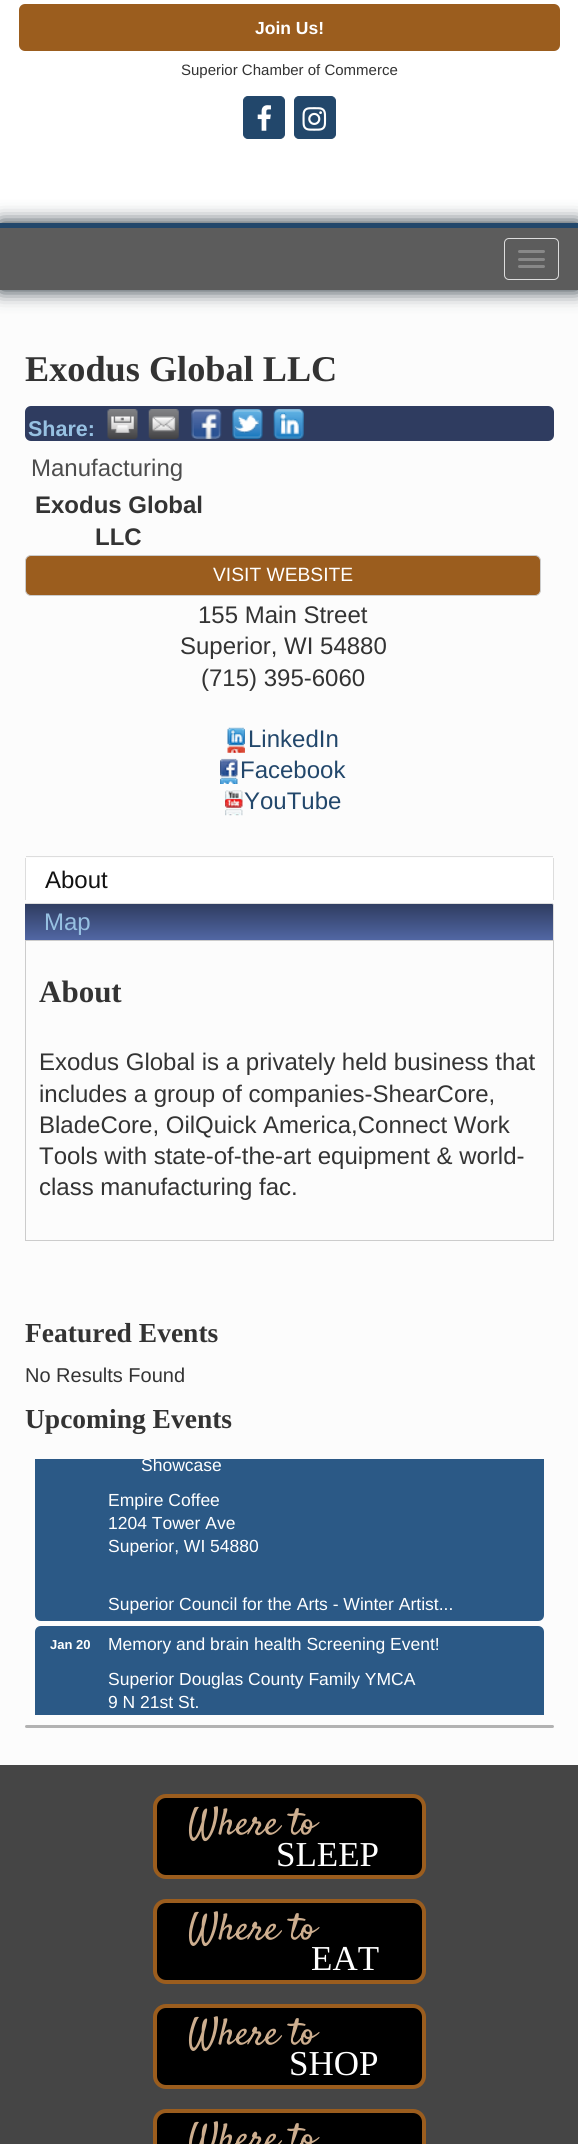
#include <cairo.h>
#include <math.h>
#include <stddef.h>


static void rgb(cairo_t *cr, int r, int g, int b)
{
	cairo_set_source_rgb(cr, r / 255.0, g / 255.0, b / 255.0);
}

static void face(cairo_t *cr, const char *family, double size, int italic, int bold)
{
	cairo_select_font_face(cr, family, italic ? CAIRO_FONT_SLANT_ITALIC : CAIRO_FONT_SLANT_NORMAL,
		bold ? CAIRO_FONT_WEIGHT_BOLD : CAIRO_FONT_WEIGHT_NORMAL);
	cairo_set_font_size(cr, size);
}

static void label(cairo_t *cr, double x, double y, const char *s)
{
	cairo_move_to(cr, x, y);
	cairo_show_text(cr, s);
}

static void rect(cairo_t *cr, double x, double y, double w, double h)
{
	cairo_rectangle(cr, x, y, w, h);
	cairo_fill(cr);
}

static void rrect(cairo_t *cr, double x, double y, double w, double h, double r)
{
	cairo_new_sub_path(cr);
	cairo_arc(cr, x + w - r, y + h - r, r, 0, M_PI / 2);
	cairo_arc(cr, x + r, y + h - r, r, M_PI / 2, M_PI);
	cairo_arc(cr, x + r, y + r, r, M_PI, 1.5 * M_PI);
	cairo_arc(cr, x + w - r, y + r, r, 1.5 * M_PI, 2 * M_PI);
	cairo_close_path(cr);
}

static void soft_shadow(cairo_t *cr, double x, double y, double w, double h, double r, double blur, double alpha)
{
	cairo_push_group_with_content(cr, CAIRO_CONTENT_ALPHA);
	cairo_set_operator(cr, CAIRO_OPERATOR_SOURCE);
	for (int i = 15; i >= -15 && fmin(w, h) + blur * i / 3 > 0; i -= 2) {
		double e = blur * i / 6;
		cairo_set_source_rgba(cr, 0, 0, 0, alpha * erfc((i - 1) / 8.5) / 2);
		rrect(cr, x - e, y - e, w + 2 * e, h + 2 * e, fmax(0, fmin(r + e + blur * .6, fmin(w, h) / 2 + e)));
		cairo_fill(cr);
	}
	cairo_pattern_t *soft = cairo_pop_group(cr);
	cairo_mask(cr, soft);
	cairo_pattern_destroy(soft);
}

static void image(cairo_t *cr, const char *path, double x, double y, double w, double h)
{
	cairo_surface_t *image = cairo_image_surface_create_from_png(path);
	cairo_save(cr);
	cairo_set_source_surface(cr, image, x, y);
	cairo_rectangle(cr, x, y, w, h);
	cairo_fill(cr);
	cairo_restore(cr);
	cairo_surface_destroy(image);
}

static void draw(cairo_t *cr) {
	cairo_pattern_t *gradient;
	rgb(cr, 255, 255, 255);
	cairo_paint(cr);
	rgb(cr, 155, 93, 30);
	rrect(cr, 19, 4, 541, 47, 6);
	cairo_fill(cr);
	face(cr, "Liberation Sans", 17.5, 0, 1);
	rgb(cr, 255, 255, 255);
	label(cr, 255, 34, "Join Us!");
	face(cr, "Liberation Sans", 15, 0, 0);
	rgb(cr, 51, 51, 51);
	label(cr, 181, 75, "Superior Chamber of Commerce");
	rgb(cr, 34, 71, 107);
	rrect(cr, 243.5, 96.5, 41, 42, 4.5);
	cairo_fill_preserve(cr);
	cairo_set_line_width(cr, 1);
	cairo_stroke(cr);
	image(cr, "image0.png", 257, 105, 14, 26);
	rrect(cr, 294.5, 96.5, 41, 42, 4.5);
	cairo_fill_preserve(cr);
	cairo_stroke(cr);
	image(cr, "image1.png", 302, 107, 25, 24);
	rgb(cr, 252, 252, 252);
	rect(cr, 0, 290, 578, 1475);
	rgb(cr, 19, 33, 43);
	soft_shadow(cr, 0, 223, 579, 67, 0, 9.5, 1);
	rgb(cr, 92, 92, 92);
	rect(cr, 0, 228, 578, 62);
	rgb(cr, 34, 71, 107);
	rect(cr, 0, 223, 578, 5);
	rrect(cr, 504.5, 238.5, 54, 41, 4.5);
	rgb(cr, 221, 221, 221);
	cairo_stroke(cr);
	rgb(cr, 136, 136, 136);
	rrect(cr, 518, 250, 27, 3, 1.5);
	cairo_fill(cr);
	rrect(cr, 518, 258, 27, 3, 1.5);
	cairo_fill(cr);
	rrect(cr, 518, 265, 27, 3, 1.5);
	cairo_fill(cr);
	face(cr, "Liberation Serif", 36.25, 0, 1);
	rgb(cr, 51, 51, 51);
	label(cr, 25, 381, "Exodus Global LLC");
	rgb(cr, 47, 60, 96);
	rrect(cr, 25, 406, 529, 35, 6);
	cairo_fill(cr);
	face(cr, "Liberation Sans", 21.5, 0, 1);
	rgb(cr, 151, 193, 226);
	label(cr, 28, 436, "Share:");
	image(cr, "image2.png", 107, 409, 31, 30);
	image(cr, "image3.png", 148, 409, 31, 30);
	image(cr, "image4.png", 191, 409, 31, 30);
	image(cr, "image5.png", 232, 409, 31, 30);
	image(cr, "image6.png", 273, 409, 31, 30);
	face(cr, "Liberation Sans", 24, 0, 0);
	rgb(cr, 77, 77, 77);
	label(cr, 31, 476, "Manufacturing");
	face(cr, "Liberation Sans", 24, 0, 1);
	rgb(cr, 51, 51, 51);
	label(cr, 35, 513, "Exodus Global");
	label(cr, 95, 545, "LLC");
	rgb(cr, 155, 93, 30);
	rrect(cr, 25.5, 555.5, 515, 40, 5.5);
	cairo_fill_preserve(cr);
	rgb(cr, 204, 204, 204);
	cairo_stroke(cr);
	face(cr, "Liberation Sans", 19.25, 0, 0);
	rgb(cr, 255, 255, 255);
	label(cr, 213, 581, "VISIT WEBSITE");
	face(cr, "Liberation Sans", 24, 0, 0);
	rgb(cr, 51, 51, 51);
	label(cr, 198, 623, "155 Main Street");
	label(cr, 180, 654, "Superior, WI 54880");
	label(cr, 201, 686, "(715) 395-6060");
	image(cr, "image7.png", 227, 727, 18, 26);
	rgb(cr, 34, 71, 107);
	label(cr, 248, 747, "LinkedIn");
	image(cr, "image8.png", 220, 758, 18, 26);
	label(cr, 240, 778, "Facebook");
	image(cr, "image9.png", 225, 790, 18, 26);
	label(cr, 244, 809, "YouTube");
	rgb(cr, 255, 255, 255);
	cairo_new_path(cr);
	cairo_move_to(cr, 27, 858);
	cairo_line_to(cr, 552, 858);
	cairo_curve_to(cr, 552.5, 858, 553, 858.5, 553, 859);
	cairo_line_to(cr, 553, 900);
	cairo_line_to(cr, 26, 900);
	cairo_line_to(cr, 26, 859);
	cairo_curve_to(cr, 26, 858.5, 26.5, 858, 27, 858);
	cairo_close_path(cr);
	cairo_fill(cr);
	rgb(cr, 221, 221, 221);
	rect(cr, 26, 856, 527, 1);
	rect(cr, 553, 858, 1, 42);
	rect(cr, 25, 858, 1, 42);
	rgb(cr, 17, 17, 17);
	label(cr, 45, 888, "About");
	gradient = cairo_pattern_create_linear(289, 904, 289, 940);
	cairo_pattern_add_color_stop_rgba(gradient, 0, 0.184, 0.235, 0.376, 1);
	cairo_pattern_add_color_stop_rgba(gradient, 1, 0.318, 0.404, 0.643, 1);
	cairo_set_source(cr, gradient);
	cairo_pattern_destroy(gradient);
	cairo_new_path(cr);
	cairo_move_to(cr, 25, 904);
	cairo_line_to(cr, 552, 904);
	cairo_curve_to(cr, 552.5, 904, 553, 904.5, 553, 905);
	cairo_line_to(cr, 553, 940);
	cairo_line_to(cr, 25, 940);
	cairo_close_path(cr);
	cairo_fill(cr);
	rgb(cr, 221, 221, 221);
	rect(cr, 25, 903, 528, 1);
	rect(cr, 553, 904, 1, 36);
	rgb(cr, 151, 193, 226);
	label(cr, 44, 930, "Map");
	cairo_rectangle(cr, 25.5, 940.5, 528, 300);
	rgb(cr, 204, 204, 204);
	cairo_stroke(cr);
	face(cr, "Liberation Serif", 31, 0, 1);
	rgb(cr, 51, 51, 51);
	label(cr, 39, 1002, "About");
	face(cr, "Liberation Sans", 24, 0, 0);
	label(cr, 39, 1070, "Exodus Global is a privately held business that");
	label(cr, 39, 1102, "includes a group of companies-ShearCore,");
	label(cr, 39, 1133, "BladeCore, OilQuick America,Connect Work");
	label(cr, 39, 1164, "Tools with state-of-the-art equipment & world-");
	label(cr, 39, 1195, "class manufacturing fac.");
	face(cr, "Liberation Serif", 27.5, 0, 1);
	label(cr, 25, 1342, "Featured Events");
	face(cr, "Liberation Sans", 20, 0, 0);
	label(cr, 25, 1382, "No Results Found");
	face(cr, "Liberation Serif", 27.5, 0, 1);
	label(cr, 25, 1428, "Upcoming Events");
	rgb(cr, 43, 89, 134);
	cairo_new_path(cr);
	cairo_move_to(cr, 35, 1459);
	cairo_line_to(cr, 544, 1459);
	cairo_line_to(cr, 544, 1615);
	cairo_curve_to(cr, 544, 1618.5, 541.5, 1621, 538, 1621);
	cairo_line_to(cr, 41, 1621);
	cairo_curve_to(cr, 37.5, 1621, 35, 1618.5, 35, 1615);
	cairo_close_path(cr);
	cairo_fill(cr);
	cairo_save(cr);
	cairo_rectangle(cr, 35, 1459, 509, 256);
	cairo_clip(cr);
	face(cr, "Liberation Sans", 17.5, 0, 0);
	rgb(cr, 255, 255, 255);
	label(cr, 141, 1471, "Showcase");
	cairo_restore(cr);
	face(cr, "Liberation Sans", 17.5, 0, 0);
	rgb(cr, 255, 255, 255);
	label(cr, 108, 1506, "Empire Coffee");
	label(cr, 108, 1529, "1204 Tower Ave");
	label(cr, 108, 1552, "Superior, WI 54880");
	label(cr, 108, 1610, "Superior Council for the Arts - Winter Artist...");
	rgb(cr, 43, 89, 134);
	cairo_new_path(cr);
	cairo_move_to(cr, 41, 1626);
	cairo_line_to(cr, 538, 1626);
	cairo_curve_to(cr, 541.5, 1626, 544, 1628.5, 544, 1632);
	cairo_line_to(cr, 544, 1715);
	cairo_line_to(cr, 35, 1715);
	cairo_line_to(cr, 35, 1632);
	cairo_curve_to(cr, 35, 1628.5, 37.5, 1626, 41, 1626);
	cairo_close_path(cr);
	cairo_fill(cr);
	face(cr, "Liberation Sans", 13, 0, 1);
	rgb(cr, 255, 255, 255);
	label(cr, 50, 1649, "Jan 20");
	face(cr, "Liberation Sans", 17.5, 0, 0);
	label(cr, 108, 1650, "Memory and brain health Screening Event!");
	label(cr, 108, 1685, "Superior Douglas County Family YMCA");
	label(cr, 108, 1708, "9 N 21st St.");
	rgb(cr, 178, 178, 178);
	rrect(cr, 25, 1725, 529, 3, 1.5);
	cairo_fill(cr);
	rgb(cr, 69, 69, 69);
	rect(cr, 0, 1765, 578, 379);
	rgb(cr, 0, 0, 0);
	rrect(cr, 155, 1796, 269, 81, 11);
	cairo_fill_preserve(cr);
	rgb(cr, 155, 93, 30);
	cairo_set_line_width(cr, 4);
	cairo_stroke(cr);
	face(cr, "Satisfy", 37.5, 0, 0);
	rgb(cr, 205, 174, 143);
	label(cr, 188, 1834, "Where to");
	face(cr, "Liberation Serif", 35, 0, 0);
	rgb(cr, 255, 255, 255);
	label(cr, 276, 1866, "SLEEP");
	rgb(cr, 0, 0, 0);
	rrect(cr, 155, 1901, 269, 81, 11);
	cairo_fill_preserve(cr);
	rgb(cr, 155, 93, 30);
	cairo_stroke(cr);
	face(cr, "Satisfy", 37.5, 0, 0);
	rgb(cr, 205, 174, 143);
	label(cr, 188, 1939, "Where to");
	face(cr, "Liberation Serif", 35, 0, 0);
	rgb(cr, 255, 255, 255);
	label(cr, 311, 1970, "EAT");
	rgb(cr, 0, 0, 0);
	rrect(cr, 155, 2006, 269, 81, 11);
	cairo_fill_preserve(cr);
	rgb(cr, 155, 93, 30);
	cairo_stroke(cr);
	face(cr, "Satisfy", 37.5, 0, 0);
	rgb(cr, 205, 174, 143);
	label(cr, 188, 2044, "Where to");
	face(cr, "Liberation Serif", 35, 0, 0);
	rgb(cr, 255, 255, 255);
	label(cr, 289, 2075, "SHOP");
	rgb(cr, 0, 0, 0);
	rrect(cr, 155, 2111, 269, 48, 11);
	cairo_fill_preserve(cr);
	rgb(cr, 155, 93, 30);
	cairo_stroke(cr);
	face(cr, "Satisfy", 37.5, 0, 0);
	rgb(cr, 205, 174, 143);
	label(cr, 188, 2149, "Where to");
}

int main(void) {
	cairo_surface_t *surface = cairo_image_surface_create(CAIRO_FORMAT_RGB24, 578, 2144);
	cairo_t *cr = cairo_create(surface);
	cairo_font_options_t *options = cairo_font_options_create();
	cairo_font_options_set_hint_metrics(options, CAIRO_HINT_METRICS_OFF);
	cairo_font_options_set_hint_style(options, CAIRO_HINT_STYLE_NONE);
	cairo_set_font_options(cr, options);
	cairo_set_miter_limit(cr, 4);
	draw(cr);
	cairo_surface_write_to_png(surface, "render.png");
	cairo_font_options_destroy(options);
	cairo_destroy(cr);
	cairo_surface_destroy(surface);
	return 0;
}
